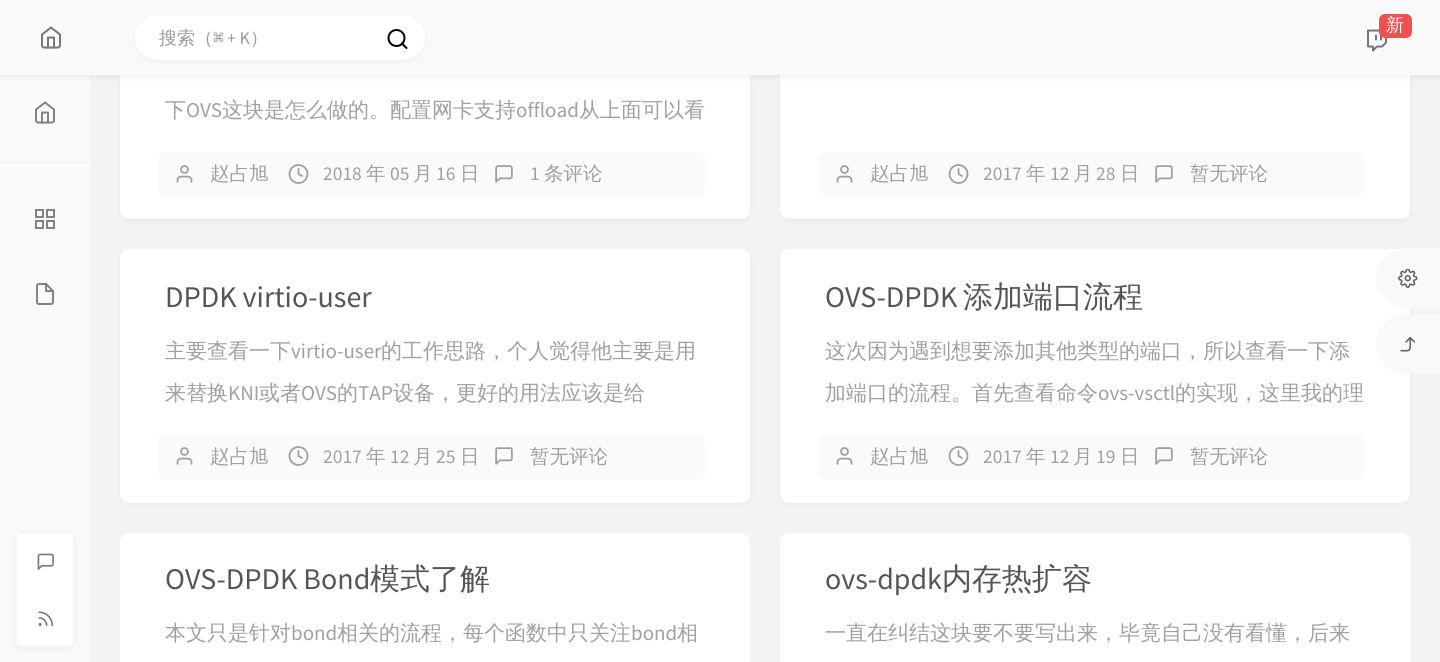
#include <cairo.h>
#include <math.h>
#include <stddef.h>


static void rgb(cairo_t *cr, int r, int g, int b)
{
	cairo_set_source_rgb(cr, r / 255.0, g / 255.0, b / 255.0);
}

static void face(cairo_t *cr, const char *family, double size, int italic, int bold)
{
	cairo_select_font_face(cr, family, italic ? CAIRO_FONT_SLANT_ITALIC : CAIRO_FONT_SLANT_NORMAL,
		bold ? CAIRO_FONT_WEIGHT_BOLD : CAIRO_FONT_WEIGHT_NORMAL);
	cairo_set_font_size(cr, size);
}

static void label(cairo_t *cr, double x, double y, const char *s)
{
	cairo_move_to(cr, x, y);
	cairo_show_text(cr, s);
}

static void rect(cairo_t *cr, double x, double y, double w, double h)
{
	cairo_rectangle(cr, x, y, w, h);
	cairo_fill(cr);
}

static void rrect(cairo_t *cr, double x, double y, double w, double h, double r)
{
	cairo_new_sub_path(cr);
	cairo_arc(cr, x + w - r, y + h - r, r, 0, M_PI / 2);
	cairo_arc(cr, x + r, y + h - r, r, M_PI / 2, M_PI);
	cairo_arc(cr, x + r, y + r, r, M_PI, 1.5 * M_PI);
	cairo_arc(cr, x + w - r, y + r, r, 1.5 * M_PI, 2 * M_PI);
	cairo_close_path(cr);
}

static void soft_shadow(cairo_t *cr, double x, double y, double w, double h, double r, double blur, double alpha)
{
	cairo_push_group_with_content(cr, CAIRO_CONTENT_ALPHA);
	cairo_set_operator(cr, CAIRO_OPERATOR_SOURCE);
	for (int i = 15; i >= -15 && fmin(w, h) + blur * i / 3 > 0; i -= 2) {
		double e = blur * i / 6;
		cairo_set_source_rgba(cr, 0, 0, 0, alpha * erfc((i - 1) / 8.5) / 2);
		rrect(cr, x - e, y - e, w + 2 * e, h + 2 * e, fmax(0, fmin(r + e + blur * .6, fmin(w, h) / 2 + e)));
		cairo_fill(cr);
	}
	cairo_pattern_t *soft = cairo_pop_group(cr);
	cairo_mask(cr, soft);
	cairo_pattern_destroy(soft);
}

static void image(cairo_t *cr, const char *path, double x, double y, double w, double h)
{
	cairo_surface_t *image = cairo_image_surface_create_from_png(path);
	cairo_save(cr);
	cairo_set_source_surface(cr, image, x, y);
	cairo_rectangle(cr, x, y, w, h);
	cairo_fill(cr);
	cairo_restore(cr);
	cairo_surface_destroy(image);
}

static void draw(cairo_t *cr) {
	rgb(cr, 241, 243, 244);
	cairo_paint(cr);
	rgb(cr, 249, 249, 249);
	rect(cr, 0, 75, 90, 587);
	rgb(cr, 0, 0, 0);
	soft_shadow(cr, 120, -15, 630, 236, 9, 2, 0.05);
	rgb(cr, 255, 255, 255);
	rrect(cr, 120, -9, 630, 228, 9);
	cairo_fill(cr);
	rgb(cr, 0, 0, 0);
	soft_shadow(cr, 780, -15, 630, 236, 9, 2, 0.05);
	rgb(cr, 255, 255, 255);
	rrect(cr, 780, -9, 630, 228, 9);
	cairo_fill(cr);
	rgb(cr, 0, 0, 0);
	soft_shadow(cr, -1, 0, 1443, 78, 0, 3, 0.05);
	rgb(cr, 249, 249, 249);
	rect(cr, 0, 0, 1440, 75);
	image(cr, "image0.png", 41, 26, 20, 23);
	image(cr, "image1.png", 1367, 29, 20, 23);
	rgb(cr, 240, 80, 80);
	rrect(cr, 1379, 14, 33, 24, 6);
	cairo_fill(cr);
	face(cr, "WenQuanYi Zen Hei Medium", 18, 0, 0);
	rgb(cr, 255, 255, 255);
	label(cr, 1386, 31, "新");
	rgb(cr, 0, 0, 0);
	soft_shadow(cr, 135, 17, 290, 45, 22.5, 2, 0.05);
	rgb(cr, 255, 255, 255);
	rrect(cr, 135, 15, 290, 45, 22.5);
	cairo_fill(cr);
	rgb(cr, 153, 153, 153);
	label(cr, 159, 44, "搜索（");
	face(cr, "DejaVu Sans Mono", 18, 0, 0);
	label(cr, 213, 44, "⌘");
	face(cr, "Source Sans Pro", 18, 0, 0);
	label(cr, 227, 44, "+ K");
	face(cr, "WenQuanYi Zen Hei Medium", 18, 0, 0);
	label(cr, 250, 44, "）");
	cairo_new_path(cr);
	cairo_arc(cr, 396.5, 38, 8, 0, 2 * M_PI);
	rgb(cr, 0, 0, 0);
	cairo_stroke(cr);
	cairo_new_path(cr);
	cairo_move_to(cr, 406.5, 48);
	cairo_line_to(cr, 402, 43.5);
	cairo_set_line_cap(cr, CAIRO_LINE_CAP_ROUND);
	cairo_set_line_join(cr, CAIRO_LINE_JOIN_ROUND);
	cairo_stroke(cr);
	image(cr, "image2.png", 35, 101, 20, 23);
	rgb(cr, 255, 255, 255);
	rect(cr, 0, 165, 90, 2);
	cairo_rectangle(cr, 36, 210, 7, 7);
	rgb(cr, 132, 132, 132);
	cairo_set_line_cap(cr, CAIRO_LINE_CAP_BUTT);
	cairo_set_line_join(cr, CAIRO_LINE_JOIN_MITER);
	cairo_stroke(cr);
	cairo_rectangle(cr, 47, 210, 7, 7);
	cairo_stroke(cr);
	cairo_rectangle(cr, 36, 221, 7, 7);
	cairo_stroke(cr);
	cairo_rectangle(cr, 47, 221, 7, 7);
	cairo_stroke(cr);
	image(cr, "image3.png", 36, 283, 18, 22);
	rgb(cr, 0, 0, 0);
	soft_shadow(cr, 15, 533, 60, 117, 8, 2, 0.05);
	rgb(cr, 255, 255, 255);
	rrect(cr, 16, 532, 58, 115, 7);
	cairo_fill_preserve(cr);
	rgb(cr, 246, 246, 246);
	cairo_stroke(cr);
	image(cr, "image4.png", 37, 553, 17, 17);
	image(cr, "image5.png", 38, 611, 15, 15);
	face(cr, "WenQuanYi Zen Hei Medium", 21, 0, 0);
	rgb(cr, 160, 160, 160);
	label(cr, 165, 117, "下");
	face(cr, "Source Sans Pro", 21, 0, 0);
	label(cr, 186, 117, "OVS");
	face(cr, "WenQuanYi Zen Hei Medium", 21, 0, 0);
	label(cr, 222, 117, "这块是怎么做的。配置网卡支持");
	face(cr, "Source Sans Pro", 21, 0, 0);
	label(cr, 516, 117, "offload");
	face(cr, "WenQuanYi Zen Hei Medium", 21, 0, 0);
	label(cr, 579, 117, "从上面可以看");
	rgb(cr, 250, 250, 250);
	rrect(cr, 158, 152, 547, 45, 8);
	cairo_fill(cr);
	image(cr, "image6.png", 176, 165, 17, 18);
	face(cr, "WenQuanYi Zen Hei Medium", 19.5, 0, 0);
	rgb(cr, 160, 160, 160);
	label(cr, 210, 180, "赵占旭");
	cairo_new_path(cr);
	cairo_arc(cr, 298.5, 174, 9, 0, 2 * M_PI);
	cairo_set_line_width(cr, 1.8);
	cairo_stroke(cr);
	face(cr, "Source Sans Pro", 19.5, 0, 0);
	label(cr, 323, 180, "2018");
	face(cr, "WenQuanYi Zen Hei Medium", 19.5, 0, 0);
	label(cr, 366, 180, "年");
	face(cr, "Source Sans Pro", 19.5, 0, 0);
	label(cr, 390, 180, "05");
	face(cr, "WenQuanYi Zen Hei Medium", 19.5, 0, 0);
	label(cr, 413, 180, "月");
	face(cr, "Source Sans Pro", 19.5, 0, 0);
	label(cr, 436, 180, "16");
	face(cr, "WenQuanYi Zen Hei Medium", 19.5, 0, 0);
	label(cr, 460, 180, "日");
	cairo_new_path(cr);
	cairo_move_to(cr, 298.5, 169);
	cairo_line_to(cr, 298.5, 174);
	cairo_line_to(cr, 302, 176);
	cairo_set_line_cap(cr, CAIRO_LINE_CAP_ROUND);
	cairo_set_line_join(cr, CAIRO_LINE_JOIN_ROUND);
	cairo_stroke(cr);
	image(cr, "image7.png", 495, 165, 18, 18);
	face(cr, "Source Sans Pro", 19.5, 0, 0);
	label(cr, 530, 180, "1");
	face(cr, "WenQuanYi Zen Hei Medium", 19.5, 0, 0);
	label(cr, 544, 180, "条评论");
	rgb(cr, 250, 250, 250);
	rrect(cr, 818, 152, 547, 45, 8);
	cairo_fill(cr);
	image(cr, "image6.png", 836, 165, 17, 18);
	rgb(cr, 160, 160, 160);
	label(cr, 870, 180, "赵占旭");
	cairo_new_path(cr);
	cairo_arc(cr, 958.5, 174, 9, 0, 2 * M_PI);
	cairo_set_line_cap(cr, CAIRO_LINE_CAP_BUTT);
	cairo_set_line_join(cr, CAIRO_LINE_JOIN_MITER);
	cairo_stroke(cr);
	face(cr, "Source Sans Pro", 19.5, 0, 0);
	label(cr, 983, 180, "2017");
	face(cr, "WenQuanYi Zen Hei Medium", 19.5, 0, 0);
	label(cr, 1026, 180, "年");
	face(cr, "Source Sans Pro", 19.5, 0, 0);
	label(cr, 1050, 180, "12");
	face(cr, "WenQuanYi Zen Hei Medium", 19.5, 0, 0);
	label(cr, 1073, 180, "月");
	face(cr, "Source Sans Pro", 19.5, 0, 0);
	label(cr, 1096, 180, "28");
	face(cr, "WenQuanYi Zen Hei Medium", 19.5, 0, 0);
	label(cr, 1120, 180, "日");
	cairo_new_path(cr);
	cairo_move_to(cr, 958.5, 169);
	cairo_line_to(cr, 958.5, 174);
	cairo_line_to(cr, 962, 176);
	cairo_set_line_cap(cr, CAIRO_LINE_CAP_ROUND);
	cairo_set_line_join(cr, CAIRO_LINE_JOIN_ROUND);
	cairo_stroke(cr);
	image(cr, "image7.png", 1155, 165, 18, 18);
	label(cr, 1190, 180, "暂无评论");
	rgb(cr, 0, 0, 0);
	soft_shadow(cr, 120, 251, 630, 253, 9, 2, 0.05);
	rgb(cr, 255, 255, 255);
	rrect(cr, 120, 249, 630, 254, 9);
	cairo_fill(cr);
	face(cr, "Source Sans Pro", 30, 0, 0);
	rgb(cr, 85, 85, 85);
	label(cr, 165, 307, "DPDK virtio-user");
	face(cr, "WenQuanYi Zen Hei Medium", 21, 0, 0);
	rgb(cr, 160, 160, 160);
	label(cr, 165, 358, "主要查看一下");
	face(cr, "Source Sans Pro", 21, 0, 0);
	label(cr, 291, 358, "virtio-user");
	face(cr, "WenQuanYi Zen Hei Medium", 21, 0, 0);
	label(cr, 381, 358, "的工作思路，个人觉得他主要是用");
	label(cr, 165, 400, "来替换");
	face(cr, "Source Sans Pro", 21, 0, 0);
	label(cr, 228, 400, "KNI");
	face(cr, "WenQuanYi Zen Hei Medium", 21, 0, 0);
	label(cr, 259, 400, "或者");
	face(cr, "Source Sans Pro", 21, 0, 0);
	label(cr, 301, 400, "OVS");
	face(cr, "WenQuanYi Zen Hei Medium", 21, 0, 0);
	label(cr, 337, 400, "的");
	face(cr, "Source Sans Pro", 21, 0, 0);
	label(cr, 358, 400, "TAP");
	face(cr, "WenQuanYi Zen Hei Medium", 21, 0, 0);
	label(cr, 393, 400, "设备，更好的用法应该是给");
	rgb(cr, 250, 250, 250);
	rrect(cr, 158, 434, 547, 46, 8);
	cairo_fill(cr);
	image(cr, "image6.png", 176, 447, 17, 18);
	face(cr, "WenQuanYi Zen Hei Medium", 19.5, 0, 0);
	rgb(cr, 160, 160, 160);
	label(cr, 210, 463, "赵占旭");
	cairo_new_path(cr);
	cairo_arc(cr, 298.5, 456, 9, 0, 2 * M_PI);
	cairo_set_line_cap(cr, CAIRO_LINE_CAP_BUTT);
	cairo_set_line_join(cr, CAIRO_LINE_JOIN_MITER);
	cairo_stroke(cr);
	label(cr, 366, 463, "年");
	label(cr, 413, 463, "月");
	label(cr, 460, 463, "日");
	cairo_new_path(cr);
	cairo_move_to(cr, 298.5, 451);
	cairo_line_to(cr, 298.5, 456);
	cairo_line_to(cr, 302, 458);
	cairo_set_line_cap(cr, CAIRO_LINE_CAP_ROUND);
	cairo_set_line_join(cr, CAIRO_LINE_JOIN_ROUND);
	cairo_stroke(cr);
	face(cr, "Source Sans Pro", 19.5, 0, 0);
	label(cr, 323, 463, "2017");
	label(cr, 390, 463, "12");
	label(cr, 436, 463, "25");
	image(cr, "image7.png", 495, 447, 18, 18);
	face(cr, "WenQuanYi Zen Hei Medium", 19.5, 0, 0);
	label(cr, 530, 463, "暂无评论");
	rgb(cr, 0, 0, 0);
	soft_shadow(cr, 780, 251, 630, 253, 9, 2, 0.05);
	rgb(cr, 255, 255, 255);
	rrect(cr, 780, 249, 630, 254, 9);
	cairo_fill(cr);
	face(cr, "Source Sans Pro", 30, 0, 0);
	rgb(cr, 85, 85, 85);
	label(cr, 825, 307, "OVS-DPDK");
	face(cr, "WenQuanYi Zen Hei Medium", 30, 0, 0);
	label(cr, 963, 307, "添加端口流程");
	face(cr, "WenQuanYi Zen Hei Medium", 21, 0, 0);
	rgb(cr, 160, 160, 160);
	label(cr, 825, 358, "这次因为遇到想要添加其他类型的端口，所以查看一下添");
	label(cr, 825, 400, "加端口的流程。首先查看命令");
	face(cr, "Source Sans Pro", 21, 0, 0);
	label(cr, 1098, 400, "ovs-vsctl");
	face(cr, "WenQuanYi Zen Hei Medium", 21, 0, 0);
	label(cr, 1175, 400, "的实现，这里我的理");
	rgb(cr, 250, 250, 250);
	rrect(cr, 818, 434, 547, 46, 8);
	cairo_fill(cr);
	image(cr, "image6.png", 836, 447, 17, 18);
	face(cr, "WenQuanYi Zen Hei Medium", 19.5, 0, 0);
	rgb(cr, 160, 160, 160);
	label(cr, 870, 463, "赵占旭");
	cairo_new_path(cr);
	cairo_arc(cr, 958.5, 456, 9, 0, 2 * M_PI);
	cairo_set_line_cap(cr, CAIRO_LINE_CAP_BUTT);
	cairo_set_line_join(cr, CAIRO_LINE_JOIN_MITER);
	cairo_stroke(cr);
	label(cr, 1026, 463, "年");
	label(cr, 1073, 463, "月");
	label(cr, 1120, 463, "日");
	cairo_new_path(cr);
	cairo_move_to(cr, 958.5, 451);
	cairo_line_to(cr, 958.5, 456);
	cairo_line_to(cr, 962, 458);
	cairo_set_line_cap(cr, CAIRO_LINE_CAP_ROUND);
	cairo_set_line_join(cr, CAIRO_LINE_JOIN_ROUND);
	cairo_stroke(cr);
	face(cr, "Source Sans Pro", 19.5, 0, 0);
	label(cr, 983, 463, "2017");
	label(cr, 1050, 463, "12");
	label(cr, 1096, 463, "19");
	image(cr, "image7.png", 1155, 447, 18, 18);
	face(cr, "WenQuanYi Zen Hei Medium", 19.5, 0, 0);
	label(cr, 1190, 463, "暂无评论");
	rgb(cr, 255, 255, 255);
	rrect(cr, 120, 533, 630, 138, 9);
	cairo_fill(cr);
	face(cr, "Source Sans Pro", 30, 0, 0);
	rgb(cr, 85, 85, 85);
	label(cr, 165, 589, "OVS-DPDK Bond");
	face(cr, "WenQuanYi Zen Hei Medium", 30, 0, 0);
	label(cr, 370, 589, "模式了解");
	face(cr, "WenQuanYi Zen Hei Medium", 21, 0, 0);
	rgb(cr, 160, 160, 160);
	label(cr, 165, 640, "本文只是针对");
	face(cr, "Source Sans Pro", 21, 0, 0);
	label(cr, 291, 640, "bond");
	face(cr, "WenQuanYi Zen Hei Medium", 21, 0, 0);
	label(cr, 337, 640, "相关的流程，每个函数中只关注");
	face(cr, "Source Sans Pro", 21, 0, 0);
	label(cr, 631, 640, "bond");
	face(cr, "WenQuanYi Zen Hei Medium", 21, 0, 0);
	label(cr, 677, 640, "相");
	rgb(cr, 255, 255, 255);
	rrect(cr, 780, 533, 630, 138, 9);
	cairo_fill(cr);
	face(cr, "Source Sans Pro", 30, 0, 0);
	rgb(cr, 85, 85, 85);
	label(cr, 825, 589, "ovs-dpdk");
	face(cr, "WenQuanYi Zen Hei Medium", 30, 0, 0);
	label(cr, 942, 589, "内存热扩容");
	face(cr, "WenQuanYi Zen Hei Medium", 21, 0, 0);
	rgb(cr, 160, 160, 160);
	label(cr, 825, 640, "一直在纠结这块要不要写出来，毕竟自己没有看懂，后来");
	rgb(cr, 249, 249, 249);
	cairo_new_path(cr);
	cairo_move_to(cr, 1408, 314);
	cairo_line_to(cr, 1440, 314);
	cairo_line_to(cr, 1440, 374);
	cairo_line_to(cr, 1408, 374);
	cairo_curve_to(cr, 1390, 374, 1376, 360, 1376, 344);
	cairo_curve_to(cr, 1376, 327, 1390, 314, 1408, 314);
	cairo_close_path(cr);
	cairo_fill(cr);
	image(cr, "image8.png", 1400, 337, 15, 15);
	cairo_new_path(cr);
	cairo_move_to(cr, 1408, 248);
	cairo_line_to(cr, 1440, 248);
	cairo_line_to(cr, 1440, 308);
	cairo_line_to(cr, 1408, 308);
	cairo_curve_to(cr, 1390, 308, 1376, 294, 1376, 278);
	cairo_curve_to(cr, 1376, 261, 1390, 248, 1408, 248);
	cairo_close_path(cr);
	cairo_fill(cr);
	image(cr, "image9.png", 1398, 269, 20, 19);
}

int main(void) {
	cairo_surface_t *surface = cairo_image_surface_create(CAIRO_FORMAT_RGB24, 1440, 662);
	cairo_t *cr = cairo_create(surface);
	cairo_font_options_t *options = cairo_font_options_create();
	cairo_font_options_set_hint_metrics(options, CAIRO_HINT_METRICS_OFF);
	cairo_font_options_set_hint_style(options, CAIRO_HINT_STYLE_NONE);
	cairo_set_font_options(cr, options);
	cairo_set_miter_limit(cr, 4);
	draw(cr);
	cairo_surface_write_to_png(surface, "render.png");
	cairo_font_options_destroy(options);
	cairo_destroy(cr);
	cairo_surface_destroy(surface);
	return 0;
}
